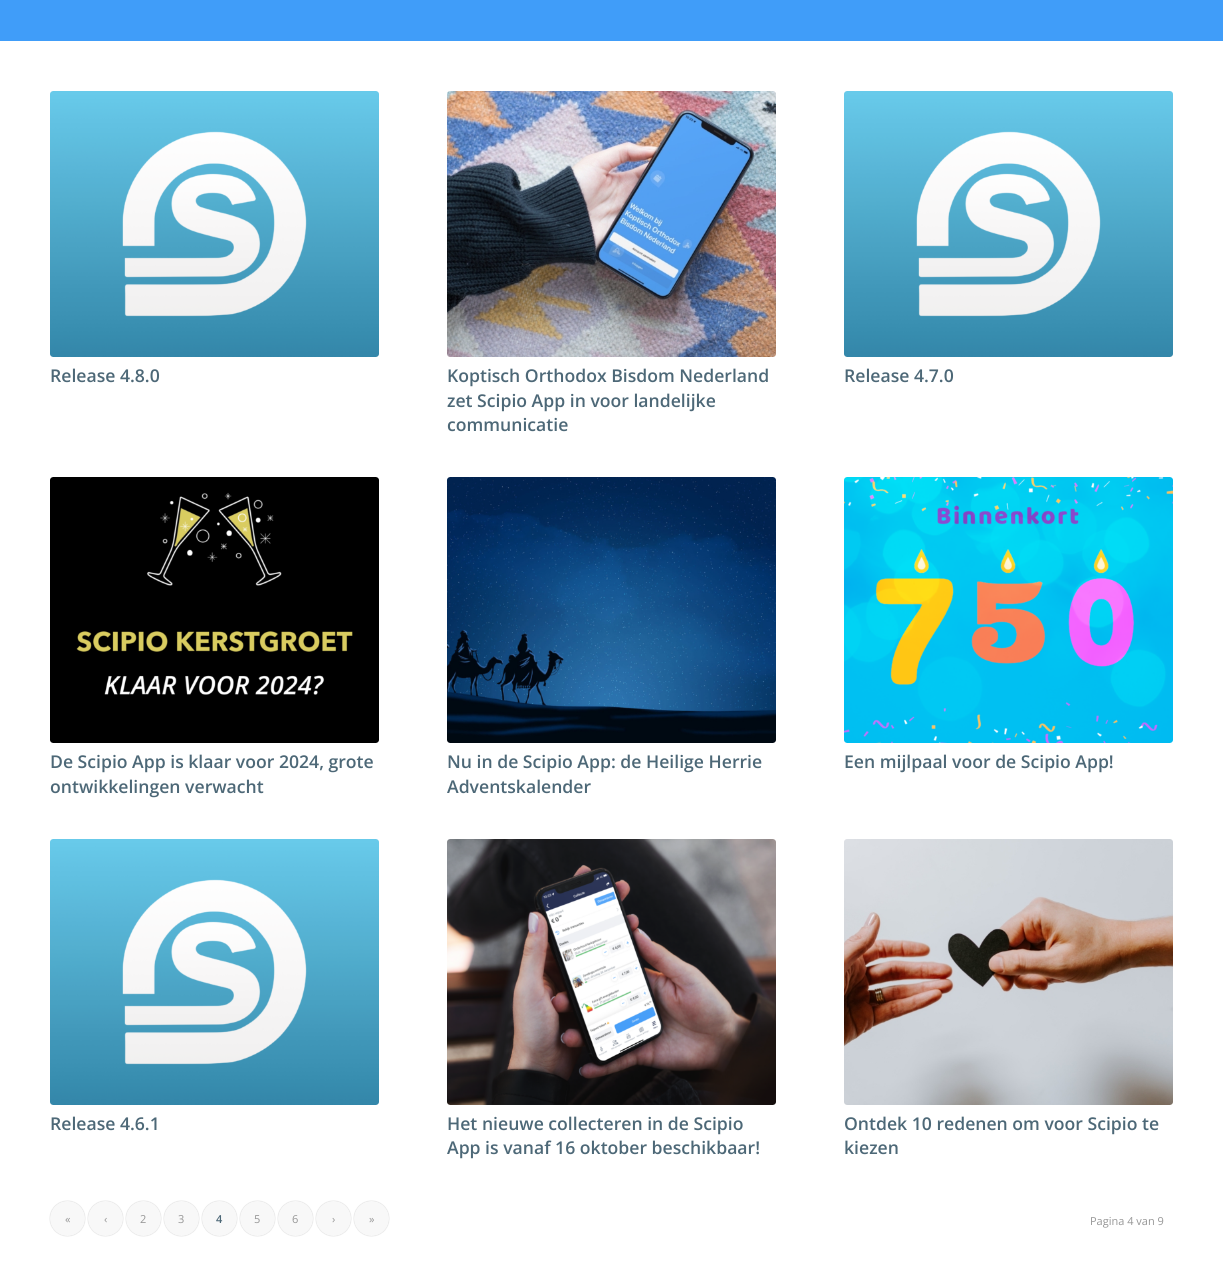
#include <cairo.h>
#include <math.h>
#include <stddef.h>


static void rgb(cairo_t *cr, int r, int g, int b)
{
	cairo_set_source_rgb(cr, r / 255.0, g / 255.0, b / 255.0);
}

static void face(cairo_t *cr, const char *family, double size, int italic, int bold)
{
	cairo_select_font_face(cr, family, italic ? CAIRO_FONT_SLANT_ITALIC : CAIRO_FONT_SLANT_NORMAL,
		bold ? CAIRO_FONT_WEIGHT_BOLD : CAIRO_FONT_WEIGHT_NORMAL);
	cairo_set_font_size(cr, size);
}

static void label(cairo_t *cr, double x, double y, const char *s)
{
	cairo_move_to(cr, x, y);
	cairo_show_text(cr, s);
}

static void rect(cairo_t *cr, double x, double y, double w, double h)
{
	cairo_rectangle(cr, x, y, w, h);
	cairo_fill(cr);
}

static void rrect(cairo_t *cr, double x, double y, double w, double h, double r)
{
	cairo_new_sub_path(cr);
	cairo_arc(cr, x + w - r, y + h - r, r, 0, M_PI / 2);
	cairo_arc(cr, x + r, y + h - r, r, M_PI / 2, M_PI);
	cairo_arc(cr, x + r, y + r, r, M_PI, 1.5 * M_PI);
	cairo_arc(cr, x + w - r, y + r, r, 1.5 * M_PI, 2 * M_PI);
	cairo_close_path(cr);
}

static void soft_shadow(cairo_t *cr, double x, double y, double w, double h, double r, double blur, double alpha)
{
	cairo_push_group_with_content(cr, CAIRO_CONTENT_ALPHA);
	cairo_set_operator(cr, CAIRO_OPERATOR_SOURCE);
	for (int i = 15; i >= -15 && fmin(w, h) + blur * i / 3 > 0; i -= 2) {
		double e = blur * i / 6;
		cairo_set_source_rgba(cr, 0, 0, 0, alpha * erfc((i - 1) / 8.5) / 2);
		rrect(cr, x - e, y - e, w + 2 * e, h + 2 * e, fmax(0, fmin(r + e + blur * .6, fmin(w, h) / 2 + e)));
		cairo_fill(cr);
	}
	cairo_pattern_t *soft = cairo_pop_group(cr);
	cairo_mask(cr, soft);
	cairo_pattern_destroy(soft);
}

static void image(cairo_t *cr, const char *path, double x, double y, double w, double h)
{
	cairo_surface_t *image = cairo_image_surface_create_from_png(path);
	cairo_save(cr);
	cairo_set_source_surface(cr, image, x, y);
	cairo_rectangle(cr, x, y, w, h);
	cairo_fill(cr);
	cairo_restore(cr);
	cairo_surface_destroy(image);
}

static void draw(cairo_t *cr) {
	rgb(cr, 255, 255, 255);
	cairo_paint(cr);
	rgb(cr, 64, 157, 249);
	rect(cr, 0, 0, 1223, 41);
	rgb(cr, 248, 248, 248);
	rrect(cr, 50, 91, 329, 266, 3);
	cairo_fill(cr);
	image(cr, "image0.png", 50, 91, 329, 266);
	face(cr, "Open Sans SemiBold", 17.6, 0, 0);
	rgb(cr, 77, 104, 119);
	label(cr, 50, 382, "Release 4.8.0");
	rgb(cr, 248, 248, 248);
	rrect(cr, 447, 91, 329, 266, 3);
	cairo_fill(cr);
	image(cr, "image1.png", 447, 91, 329, 266);
	rgb(cr, 77, 104, 119);
	label(cr, 447, 382, "Koptisch Orthodox Bisdom Nederland");
	label(cr, 447, 407, "zet Scipio App in voor landelijke");
	label(cr, 447, 431, "communicatie");
	rgb(cr, 248, 248, 248);
	rrect(cr, 844, 91, 329, 266, 3);
	cairo_fill(cr);
	image(cr, "image0.png", 844, 91, 329, 266);
	rgb(cr, 77, 104, 119);
	label(cr, 844, 382, "Release 4.7.0");
	rgb(cr, 248, 248, 248);
	rrect(cr, 50, 477, 329, 266, 3);
	cairo_fill(cr);
	image(cr, "image2.png", 50, 477, 329, 266);
	rgb(cr, 77, 104, 119);
	label(cr, 50, 768, "De Scipio App is klaar voor 2024, grote");
	label(cr, 50, 793, "ontwikkelingen verwacht");
	rgb(cr, 248, 248, 248);
	rrect(cr, 447, 477, 329, 266, 3);
	cairo_fill(cr);
	image(cr, "image3.png", 447, 477, 329, 266);
	rgb(cr, 77, 104, 119);
	label(cr, 447, 768, "Nu in de Scipio App: de Heilige Herrie");
	label(cr, 447, 793, "Adventskalender");
	rgb(cr, 248, 248, 248);
	rrect(cr, 844, 477, 329, 266, 3);
	cairo_fill(cr);
	image(cr, "image4.png", 844, 477, 329, 266);
	rgb(cr, 77, 104, 119);
	label(cr, 844, 768, "Een mijlpaal voor de Scipio App!");
	rgb(cr, 248, 248, 248);
	rrect(cr, 50, 839, 329, 266, 3);
	cairo_fill(cr);
	image(cr, "image0.png", 50, 839, 329, 266);
	rgb(cr, 77, 104, 119);
	label(cr, 50, 1130, "Release 4.6.1");
	rgb(cr, 248, 248, 248);
	rrect(cr, 447, 839, 329, 266, 3);
	cairo_fill(cr);
	image(cr, "image5.png", 447, 839, 329, 266);
	rgb(cr, 77, 104, 119);
	label(cr, 447, 1130, "Het nieuwe collecteren in de Scipio");
	label(cr, 447, 1154, "App is vanaf 16 oktober beschikbaar!");
	rgb(cr, 248, 248, 248);
	rrect(cr, 844, 839, 329, 266, 3);
	cairo_fill(cr);
	image(cr, "image6.png", 844, 839, 329, 266);
	rgb(cr, 77, 104, 119);
	label(cr, 844, 1130, "Ontdek 10 redenen om voor Scipio te");
	label(cr, 844, 1154, "kiezen");
	rgb(cr, 0, 0, 0);
	soft_shadow(cr, 50, 1201, 35, 35, 17.5, 0.5, 0.2);
	rgb(cr, 248, 248, 248);
	cairo_arc(cr, 67.5, 1218.5, 17.5, 0, 2 * M_PI);
	cairo_fill(cr);
	face(cr, "Open Sans", 11, 0, 0);
	rgb(cr, 150, 150, 150);
	label(cr, 65, 1223, "«");
	rgb(cr, 0, 0, 0);
	soft_shadow(cr, 88, 1201, 35, 35, 17.5, 0.5, 0.2);
	rgb(cr, 248, 248, 248);
	cairo_arc(cr, 105.5, 1218.5, 17.5, 0, 2 * M_PI);
	cairo_fill(cr);
	rgb(cr, 150, 150, 150);
	label(cr, 104, 1223, "‹");
	rgb(cr, 0, 0, 0);
	soft_shadow(cr, 126, 1201, 35, 35, 17.5, 0.5, 0.2);
	rgb(cr, 248, 248, 248);
	cairo_arc(cr, 143.5, 1218.5, 17.5, 0, 2 * M_PI);
	cairo_fill(cr);
	rgb(cr, 150, 150, 150);
	label(cr, 140, 1223, "2");
	rgb(cr, 0, 0, 0);
	soft_shadow(cr, 164, 1201, 35, 35, 17.5, 0.5, 0.2);
	rgb(cr, 248, 248, 248);
	cairo_arc(cr, 181.5, 1218.5, 17.5, 0, 2 * M_PI);
	cairo_fill(cr);
	rgb(cr, 150, 150, 150);
	label(cr, 178, 1223, "3");
	rgb(cr, 0, 0, 0);
	soft_shadow(cr, 202, 1201, 35, 35, 17.5, 0.5, 0.2);
	rgb(cr, 248, 248, 248);
	cairo_arc(cr, 219.5, 1218.5, 17.5, 0, 2 * M_PI);
	cairo_fill(cr);
	face(cr, "Open Sans SemiBold", 11, 0, 0);
	rgb(cr, 77, 104, 119);
	label(cr, 216, 1223, "4");
	rgb(cr, 0, 0, 0);
	soft_shadow(cr, 240, 1201, 35, 35, 17.5, 0.5, 0.2);
	rgb(cr, 248, 248, 248);
	cairo_arc(cr, 257.5, 1218.5, 17.5, 0, 2 * M_PI);
	cairo_fill(cr);
	face(cr, "Open Sans", 11, 0, 0);
	rgb(cr, 150, 150, 150);
	label(cr, 254, 1223, "5");
	rgb(cr, 0, 0, 0);
	soft_shadow(cr, 278, 1201, 35, 35, 17.5, 0.5, 0.2);
	rgb(cr, 248, 248, 248);
	cairo_arc(cr, 295.5, 1218.5, 17.5, 0, 2 * M_PI);
	cairo_fill(cr);
	rgb(cr, 150, 150, 150);
	label(cr, 292, 1223, "6");
	rgb(cr, 0, 0, 0);
	soft_shadow(cr, 316, 1201, 35, 35, 17.5, 0.5, 0.2);
	rgb(cr, 248, 248, 248);
	cairo_arc(cr, 333.5, 1218.5, 17.5, 0, 2 * M_PI);
	cairo_fill(cr);
	rgb(cr, 150, 150, 150);
	label(cr, 332, 1223, "›");
	rgb(cr, 0, 0, 0);
	soft_shadow(cr, 354, 1201, 35, 35, 17.5, 0.5, 0.2);
	rgb(cr, 248, 248, 248);
	cairo_arc(cr, 371.5, 1218.5, 17.5, 0, 2 * M_PI);
	cairo_fill(cr);
	rgb(cr, 150, 150, 150);
	label(cr, 369, 1223, "»");
	label(cr, 1090, 1225, "Pagina 4 van 9");
}

int main(void) {
	cairo_surface_t *surface = cairo_image_surface_create(CAIRO_FORMAT_RGB24, 1223, 1270);
	cairo_t *cr = cairo_create(surface);
	cairo_font_options_t *options = cairo_font_options_create();
	cairo_font_options_set_hint_metrics(options, CAIRO_HINT_METRICS_OFF);
	cairo_font_options_set_hint_style(options, CAIRO_HINT_STYLE_NONE);
	cairo_set_font_options(cr, options);
	cairo_set_miter_limit(cr, 4);
	draw(cr);
	cairo_surface_write_to_png(surface, "render.png");
	cairo_font_options_destroy(options);
	cairo_destroy(cr);
	cairo_surface_destroy(surface);
	return 0;
}
